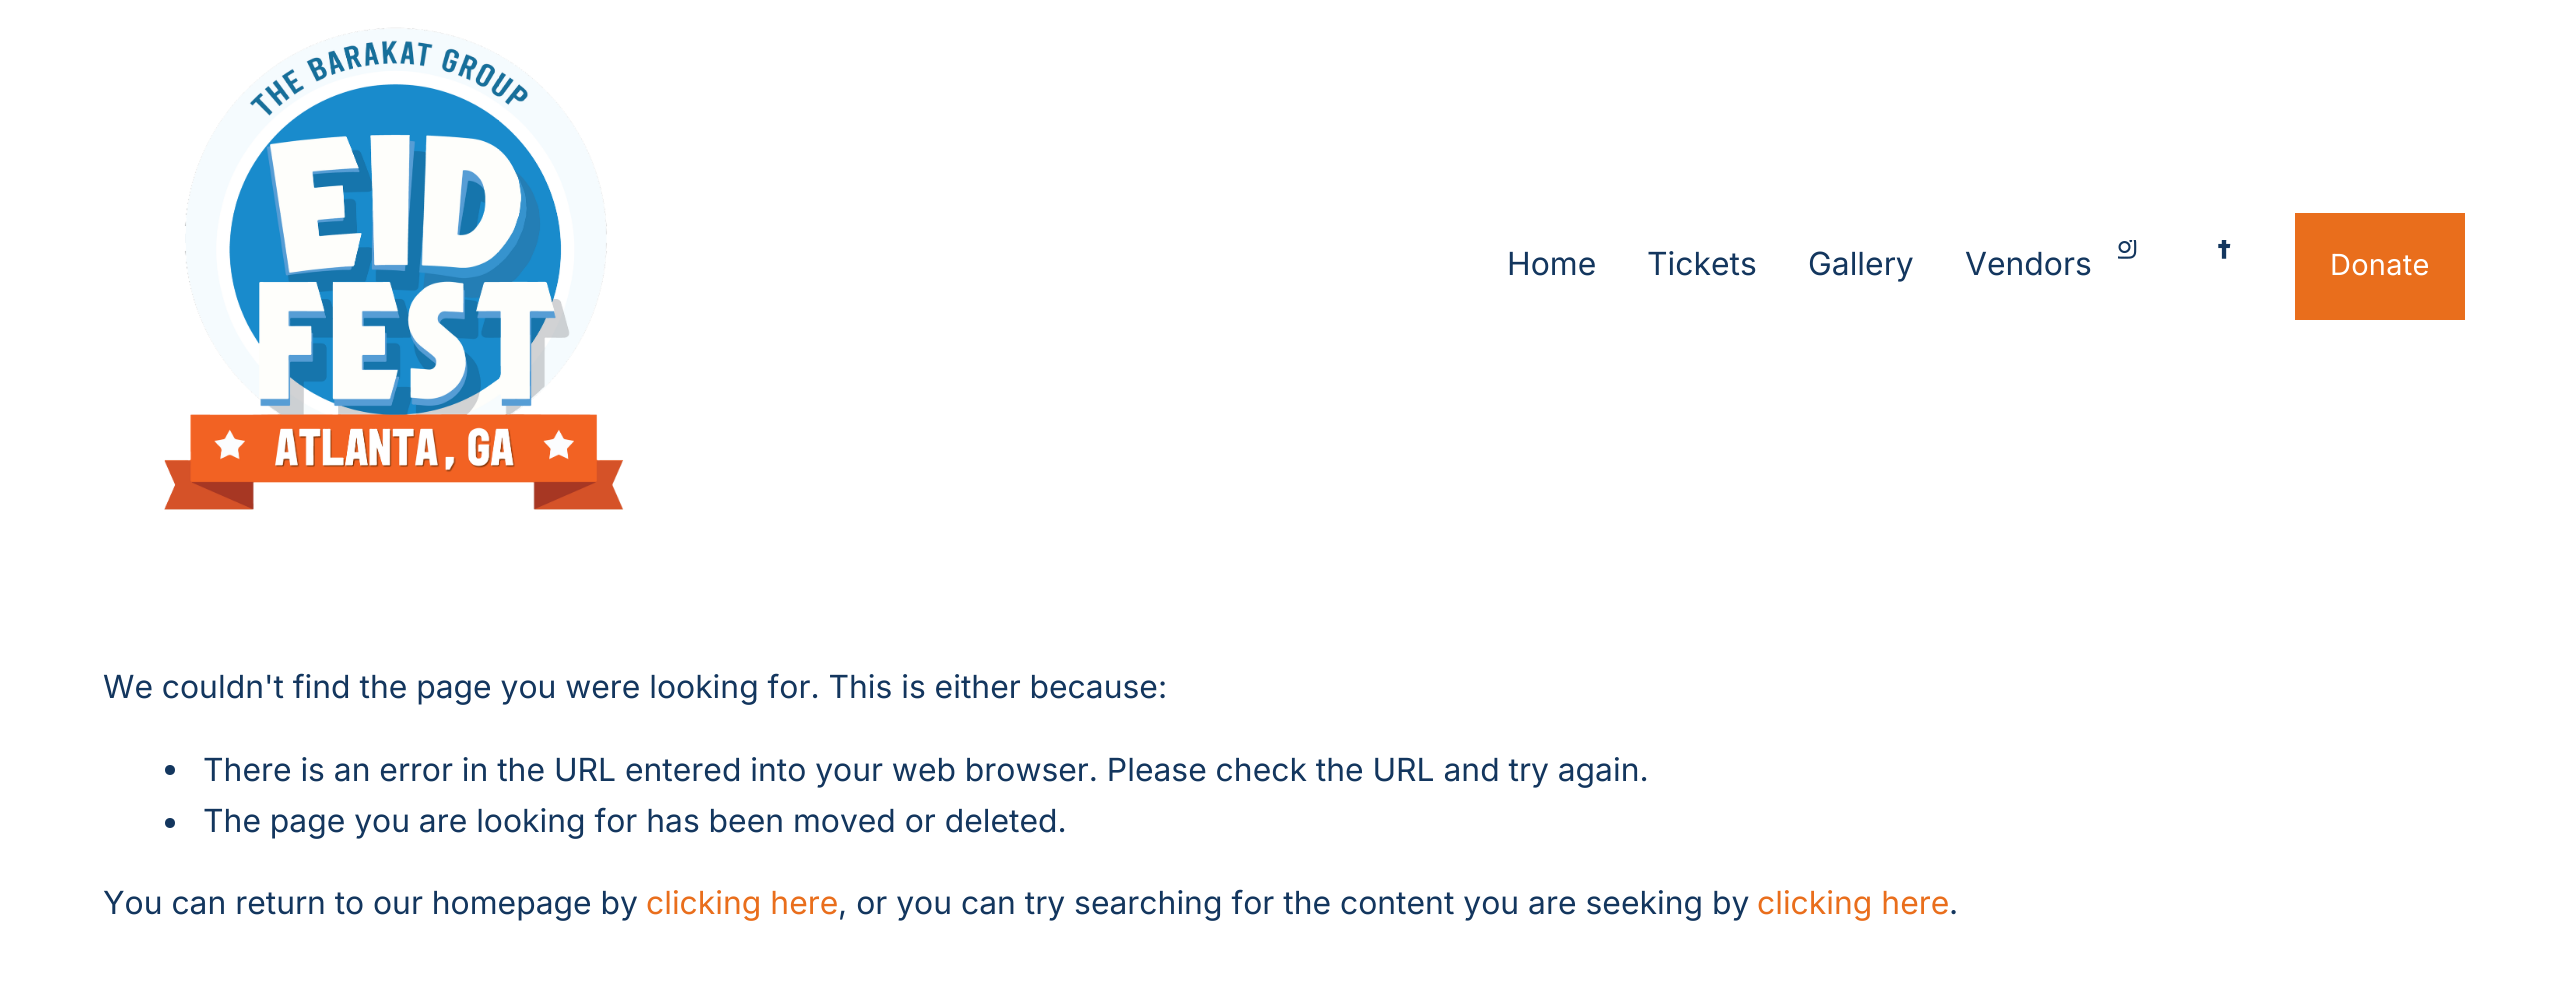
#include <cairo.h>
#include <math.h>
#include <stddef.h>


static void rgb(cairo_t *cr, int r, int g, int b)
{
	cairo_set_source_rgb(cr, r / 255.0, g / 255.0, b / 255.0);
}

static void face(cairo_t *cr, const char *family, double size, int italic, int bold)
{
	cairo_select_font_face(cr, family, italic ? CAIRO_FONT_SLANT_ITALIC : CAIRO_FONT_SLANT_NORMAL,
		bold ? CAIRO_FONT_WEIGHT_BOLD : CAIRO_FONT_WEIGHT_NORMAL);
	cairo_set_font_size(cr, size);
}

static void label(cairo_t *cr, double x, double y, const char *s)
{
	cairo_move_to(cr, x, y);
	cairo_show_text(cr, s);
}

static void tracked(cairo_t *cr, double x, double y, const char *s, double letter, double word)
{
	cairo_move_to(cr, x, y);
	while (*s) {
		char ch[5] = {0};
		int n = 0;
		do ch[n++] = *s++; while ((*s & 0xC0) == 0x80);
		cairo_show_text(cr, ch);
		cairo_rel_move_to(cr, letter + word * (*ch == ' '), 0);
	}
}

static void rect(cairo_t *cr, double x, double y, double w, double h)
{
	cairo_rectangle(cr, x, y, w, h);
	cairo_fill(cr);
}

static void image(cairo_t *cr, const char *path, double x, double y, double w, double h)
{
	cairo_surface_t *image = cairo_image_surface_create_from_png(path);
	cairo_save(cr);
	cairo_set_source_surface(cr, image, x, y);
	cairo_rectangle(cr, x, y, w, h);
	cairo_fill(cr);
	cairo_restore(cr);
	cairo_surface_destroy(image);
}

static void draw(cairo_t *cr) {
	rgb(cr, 255, 255, 255);
	cairo_paint(cr);
	image(cr, "image0.png", 164, 27, 460, 483);
	face(cr, "Inter", 31.85, 0, 0);
	rgb(cr, 19, 54, 94);
	label(cr, 1507, 275, "Home");
	label(cr, 1647, 275, "Tickets");
	label(cr, 1808, 275, "Gallery");
	label(cr, 1965, 275, "Vendors");
	image(cr, "image1.png", 2118, 240, 19, 19);
	image(cr, "image2.png", 2218, 240, 13, 19);
	rgb(cr, 233, 110, 28);
	rect(cr, 2295, 213, 170, 107);
	face(cr, "Inter", 29, 0, 0);
	rgb(cr, 255, 255, 255);
	tracked(cr, 2330, 275, "Donate", 0.25, 0);
	face(cr, "Inter", 31.85, 0, 0);
	rgb(cr, 19, 54, 94);
	tracked(cr, 103, 698, "We couldn't find the page you were looking for. This is either because:", 0, -0.1);
	cairo_new_path(cr);
	cairo_arc(cr, 170, 770, 5, 0, 2 * M_PI);
	cairo_fill(cr);
	tracked(cr, 203, 781, "There is an error in the URL entered into your web browser. Please check the URL and try again.", 0, -0.1);
	cairo_new_path(cr);
	cairo_arc(cr, 170, 823, 5, 0, 2 * M_PI);
	cairo_fill(cr);
	tracked(cr, 203, 832, "The page you are looking for has been moved or deleted.", 0, -0.1);
	tracked(cr, 103, 914, "You can return to our homepage by", 0, -0.1);
	rgb(cr, 233, 110, 28);
	label(cr, 646, 914, "clicking here");
	rgb(cr, 19, 54, 94);
	label(cr, 838, 914, ", or you can try searching for the content you are seeking by");
	rgb(cr, 233, 110, 28);
	label(cr, 1757, 914, "clicking here");
	rgb(cr, 19, 54, 94);
	label(cr, 1949, 914, ".");
}

int main(void) {
	cairo_surface_t *surface = cairo_image_surface_create(CAIRO_FORMAT_RGB24, 2567, 1006);
	cairo_t *cr = cairo_create(surface);
	cairo_font_options_t *options = cairo_font_options_create();
	cairo_font_options_set_hint_metrics(options, CAIRO_HINT_METRICS_OFF);
	cairo_font_options_set_hint_style(options, CAIRO_HINT_STYLE_NONE);
	cairo_set_font_options(cr, options);
	cairo_set_miter_limit(cr, 4);
	draw(cr);
	cairo_surface_write_to_png(surface, "render.png");
	cairo_font_options_destroy(options);
	cairo_destroy(cr);
	cairo_surface_destroy(surface);
	return 0;
}
